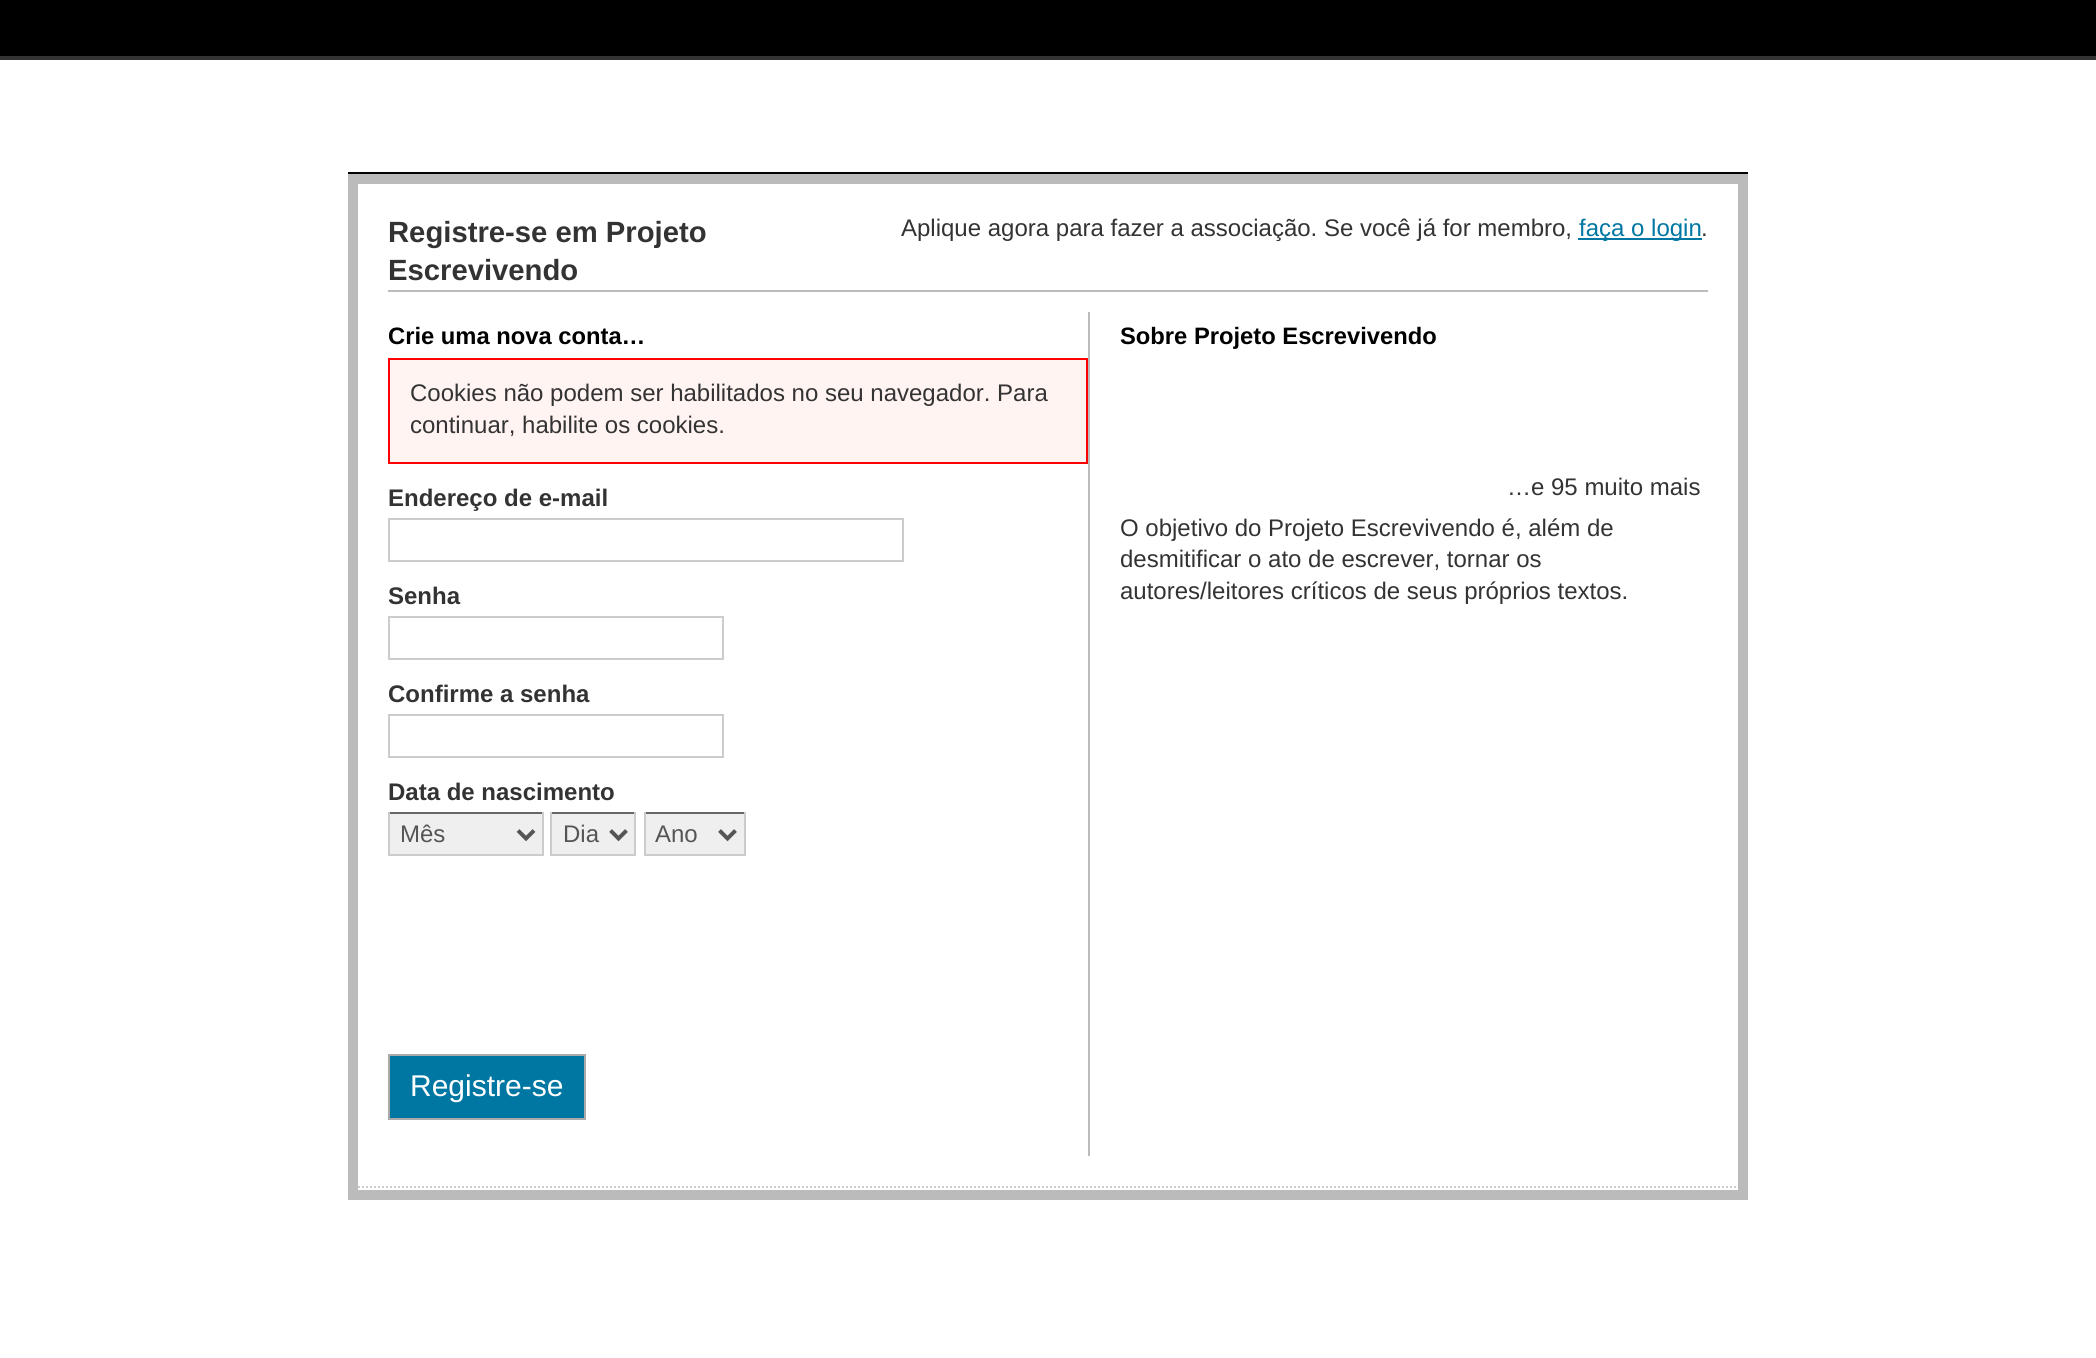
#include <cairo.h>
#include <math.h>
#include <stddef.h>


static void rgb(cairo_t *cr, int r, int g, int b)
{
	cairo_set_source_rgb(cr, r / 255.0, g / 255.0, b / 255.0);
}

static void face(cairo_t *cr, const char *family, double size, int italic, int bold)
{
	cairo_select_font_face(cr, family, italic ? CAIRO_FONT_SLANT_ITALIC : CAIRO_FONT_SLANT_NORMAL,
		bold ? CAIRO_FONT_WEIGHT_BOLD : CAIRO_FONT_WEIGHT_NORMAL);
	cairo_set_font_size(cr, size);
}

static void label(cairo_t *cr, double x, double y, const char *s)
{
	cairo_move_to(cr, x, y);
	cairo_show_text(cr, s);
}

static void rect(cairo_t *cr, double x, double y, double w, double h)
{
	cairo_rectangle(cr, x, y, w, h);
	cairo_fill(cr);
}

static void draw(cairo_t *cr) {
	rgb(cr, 255, 255, 255);
	cairo_paint(cr);
	rgb(cr, 0, 0, 0);
	rect(cr, 0, 0, 2096, 56);
	rgb(cr, 51, 51, 51);
	rect(cr, 0, 56, 2096, 4);
	rgb(cr, 0, 0, 0);
	rect(cr, 348, 172, 1400, 2);
	cairo_rectangle(cr, 353, 179, 1390, 1016);
	rgb(cr, 187, 187, 187);
	cairo_set_line_width(cr, 10);
	cairo_stroke(cr);
	cairo_new_path(cr);
	cairo_move_to(cr, 358, 1187);
	cairo_line_to(cr, 1738, 1187);
	rgb(cr, 204, 204, 204);
	cairo_set_line_width(cr, 2);
	cairo_set_dash(cr, (double[]){2, 2}, 2, 0);
	cairo_stroke(cr);
	rgb(cr, 187, 187, 187);
	rect(cr, 388, 290, 1320, 2);
	face(cr, "Liberation Sans", 29.25, 0, 1);
	rgb(cr, 51, 51, 51);
	label(cr, 388, 242, "Registre-se em Projeto");
	label(cr, 388, 280, "Escrevivendo");
	face(cr, "Liberation Sans", 24, 0, 0);
	label(cr, 901, 236, "Aplique agora para fazer a associação. Se você já for membro,");
	rgb(cr, 0, 118, 163);
	rect(cr, 1578, 238, 124, 2);
	label(cr, 1579, 236, "faça o login");
	rgb(cr, 51, 51, 51);
	label(cr, 1701, 236, ".");
	rgb(cr, 187, 187, 187);
	rect(cr, 1088, 312, 2, 844);
	face(cr, "Liberation Sans", 23.75, 0, 1);
	rgb(cr, 0, 0, 0);
	label(cr, 388, 344, "Crie uma nova conta…");
	rgb(cr, 255, 244, 242);
	cairo_rectangle(cr, 389, 359, 698, 104);
	cairo_fill_preserve(cr);
	rgb(cr, 255, 0, 0);
	cairo_set_dash(cr, NULL, 0, 0);
	cairo_stroke(cr);
	face(cr, "Liberation Sans", 24, 0, 0);
	rgb(cr, 51, 51, 51);
	label(cr, 410, 401, "Cookies não podem ser habilitados no seu navegador. Para");
	label(cr, 410, 433, "continuar, habilite os cookies.");
	face(cr, "Liberation Sans", 24, 0, 1);
	label(cr, 388, 506, "Endereço de e-mail");
	cairo_rectangle(cr, 389, 519, 514, 42);
	rgb(cr, 204, 204, 204);
	cairo_stroke(cr);
	rgb(cr, 51, 51, 51);
	label(cr, 388, 604, "Senha");
	cairo_rectangle(cr, 389, 617, 334, 42);
	rgb(cr, 204, 204, 204);
	cairo_stroke(cr);
	rgb(cr, 51, 51, 51);
	label(cr, 388, 702, "Confirme a senha");
	cairo_rectangle(cr, 389, 715, 334, 42);
	rgb(cr, 204, 204, 204);
	cairo_stroke(cr);
	rgb(cr, 51, 51, 51);
	label(cr, 388, 800, "Data de nascimento");
	rgb(cr, 239, 239, 239);
	rect(cr, 390, 814, 152, 40);
	rgb(cr, 102, 102, 102);
	rect(cr, 388, 812, 156, 2);
	rgb(cr, 204, 204, 204);
	rect(cr, 542, 812, 2, 44);
	rect(cr, 388, 854, 156, 2);
	rect(cr, 388, 812, 2, 44);
	cairo_new_path(cr);
	cairo_move_to(cr, 518, 830.5);
	cairo_line_to(cr, 526, 838.5);
	cairo_line_to(cr, 534, 830.5);
	rgb(cr, 85, 85, 85);
	cairo_set_line_width(cr, 4);
	cairo_stroke(cr);
	face(cr, "Liberation Sans", 24, 0, 0);
	label(cr, 400, 842, "Mês");
	rgb(cr, 239, 239, 239);
	rect(cr, 552, 814, 82, 40);
	rgb(cr, 102, 102, 102);
	rect(cr, 550, 812, 86, 2);
	rgb(cr, 204, 204, 204);
	rect(cr, 634, 812, 2, 44);
	rect(cr, 550, 854, 86, 2);
	rect(cr, 550, 812, 2, 44);
	cairo_new_path(cr);
	cairo_move_to(cr, 610.5, 830.5);
	cairo_line_to(cr, 618.5, 838.5);
	cairo_line_to(cr, 626.5, 830.5);
	rgb(cr, 85, 85, 85);
	cairo_stroke(cr);
	label(cr, 563, 842, "Dia");
	rgb(cr, 239, 239, 239);
	rect(cr, 646, 814, 98, 40);
	rgb(cr, 102, 102, 102);
	rect(cr, 644, 812, 102, 2);
	rgb(cr, 204, 204, 204);
	rect(cr, 744, 812, 2, 44);
	rect(cr, 644, 854, 102, 2);
	rect(cr, 644, 812, 2, 44);
	cairo_new_path(cr);
	cairo_move_to(cr, 719.5, 830.5);
	cairo_line_to(cr, 727.5, 838.5);
	cairo_line_to(cr, 735.5, 830.5);
	rgb(cr, 85, 85, 85);
	cairo_stroke(cr);
	label(cr, 655, 842, "Ano");
	rgb(cr, 0, 118, 163);
	cairo_rectangle(cr, 389, 1055, 196, 64);
	cairo_fill_preserve(cr);
	rgb(cr, 170, 170, 170);
	cairo_set_line_width(cr, 2);
	cairo_stroke(cr);
	face(cr, "Liberation Sans", 30, 0, 0);
	rgb(cr, 255, 255, 255);
	label(cr, 410, 1096, "Registre-se");
	face(cr, "Liberation Sans", 23.75, 0, 1);
	rgb(cr, 0, 0, 0);
	label(cr, 1120, 344, "Sobre Projeto Escrevivendo");
	face(cr, "Liberation Sans", 24, 0, 0);
	rgb(cr, 51, 51, 51);
	label(cr, 1507, 495, "…e 95 muito mais");
	label(cr, 1120, 536, "O objetivo do Projeto Escrevivendo é, além de");
	label(cr, 1120, 567, "desmitificar o ato de escrever, tornar os");
	label(cr, 1120, 599, "autores/leitores críticos de seus próprios textos.");
}

int main(void) {
	cairo_surface_t *surface = cairo_image_surface_create(CAIRO_FORMAT_RGB24, 2096, 1358);
	cairo_t *cr = cairo_create(surface);
	cairo_font_options_t *options = cairo_font_options_create();
	cairo_font_options_set_hint_metrics(options, CAIRO_HINT_METRICS_OFF);
	cairo_font_options_set_hint_style(options, CAIRO_HINT_STYLE_NONE);
	cairo_set_font_options(cr, options);
	cairo_set_miter_limit(cr, 4);
	draw(cr);
	cairo_surface_write_to_png(surface, "render.png");
	cairo_font_options_destroy(options);
	cairo_destroy(cr);
	cairo_surface_destroy(surface);
	return 0;
}
